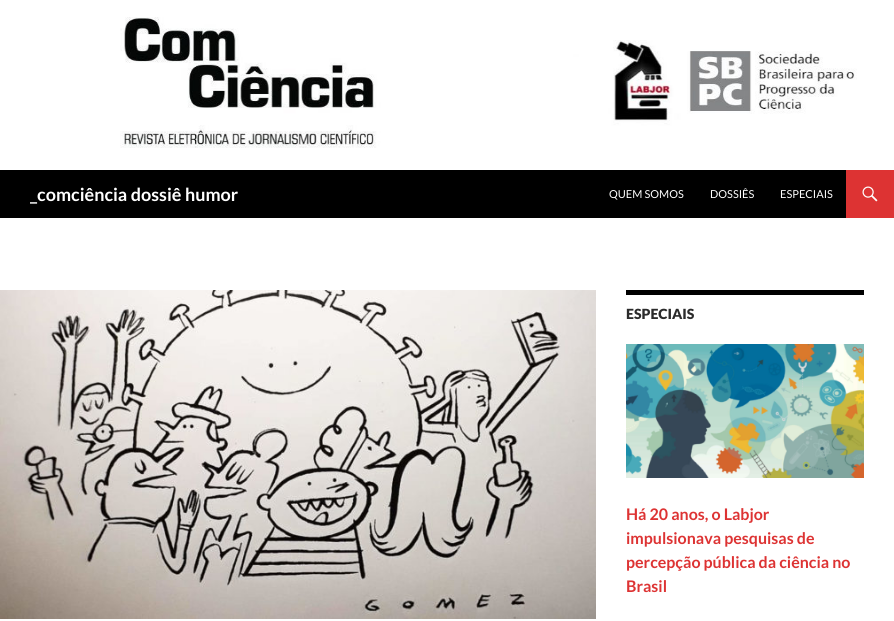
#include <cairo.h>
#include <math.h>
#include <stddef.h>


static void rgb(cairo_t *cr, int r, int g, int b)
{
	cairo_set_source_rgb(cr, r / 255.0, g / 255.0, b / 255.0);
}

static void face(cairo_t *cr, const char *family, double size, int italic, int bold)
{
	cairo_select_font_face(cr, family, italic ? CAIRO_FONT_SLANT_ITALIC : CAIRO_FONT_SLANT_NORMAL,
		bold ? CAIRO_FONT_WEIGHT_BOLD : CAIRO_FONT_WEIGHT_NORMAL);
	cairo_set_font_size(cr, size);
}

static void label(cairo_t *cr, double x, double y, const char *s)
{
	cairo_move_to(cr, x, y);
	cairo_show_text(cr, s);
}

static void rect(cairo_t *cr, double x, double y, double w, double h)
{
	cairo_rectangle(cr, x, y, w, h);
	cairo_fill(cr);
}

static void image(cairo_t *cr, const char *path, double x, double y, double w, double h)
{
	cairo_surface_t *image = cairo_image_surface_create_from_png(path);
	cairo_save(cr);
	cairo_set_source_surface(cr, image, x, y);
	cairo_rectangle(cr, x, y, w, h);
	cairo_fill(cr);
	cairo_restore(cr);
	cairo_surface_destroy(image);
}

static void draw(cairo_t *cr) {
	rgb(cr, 255, 255, 255);
	cairo_paint(cr);
	image(cr, "image0.png", 120, 17, 737, 131);
	rgb(cr, 0, 0, 0);
	rect(cr, 0, 170, 846, 48);
	face(cr, "Lato", 18, 0, 1);
	rgb(cr, 255, 255, 255);
	label(cr, 30, 201, "_comciência dossiê humor");
	face(cr, "Lato", 11, 0, 0);
	label(cr, 609, 198, "QUEM SOMOS");
	label(cr, 710, 198, "DOSSIÊS");
	label(cr, 780, 198, "ESPECIAIS");
	rgb(cr, 221, 51, 51);
	rect(cr, 846, 170, 48, 48);
	image(cr, "image1.png", 862, 186, 16, 16);
	image(cr, "image2.png", 0, 290, 596, 329);
	rgb(cr, 0, 0, 0);
	rect(cr, 626, 290, 238, 5);
	face(cr, "Lato Black", 14, 0, 0);
	rgb(cr, 43, 43, 43);
	label(cr, 626, 319, "ESPECIAIS");
	image(cr, "image3.png", 626, 344, 238, 134);
	face(cr, "Lato", 16, 0, 1);
	rgb(cr, 221, 51, 51);
	label(cr, 626, 520, "Há 20 anos, o Labjor");
	label(cr, 626, 544, "impulsionava pesquisas de");
	label(cr, 626, 568, "percepção pública da ciência no");
	label(cr, 626, 592, "Brasil");
}

int main(void) {
	cairo_surface_t *surface = cairo_image_surface_create(CAIRO_FORMAT_RGB24, 894, 621);
	cairo_t *cr = cairo_create(surface);
	cairo_font_options_t *options = cairo_font_options_create();
	cairo_font_options_set_hint_metrics(options, CAIRO_HINT_METRICS_OFF);
	cairo_font_options_set_hint_style(options, CAIRO_HINT_STYLE_NONE);
	cairo_set_font_options(cr, options);
	cairo_set_miter_limit(cr, 4);
	draw(cr);
	cairo_surface_write_to_png(surface, "render.png");
	cairo_font_options_destroy(options);
	cairo_destroy(cr);
	cairo_surface_destroy(surface);
	return 0;
}
